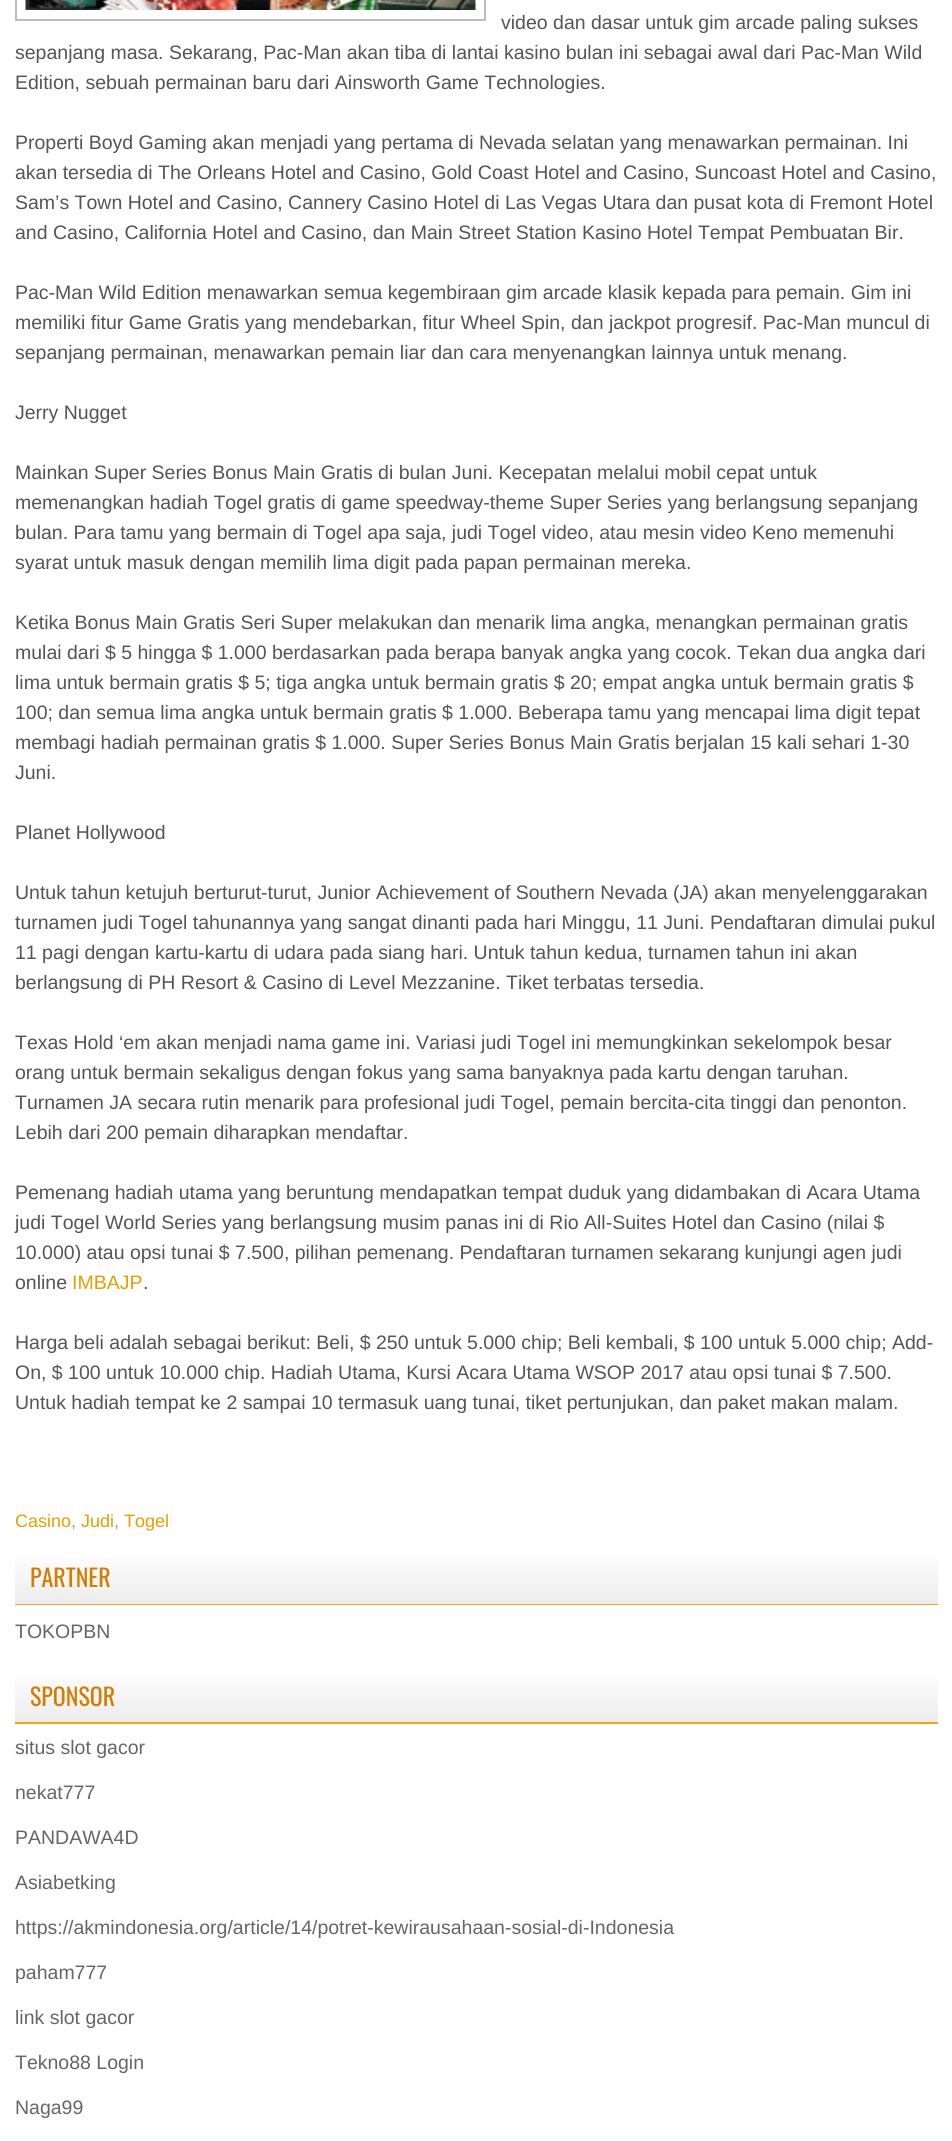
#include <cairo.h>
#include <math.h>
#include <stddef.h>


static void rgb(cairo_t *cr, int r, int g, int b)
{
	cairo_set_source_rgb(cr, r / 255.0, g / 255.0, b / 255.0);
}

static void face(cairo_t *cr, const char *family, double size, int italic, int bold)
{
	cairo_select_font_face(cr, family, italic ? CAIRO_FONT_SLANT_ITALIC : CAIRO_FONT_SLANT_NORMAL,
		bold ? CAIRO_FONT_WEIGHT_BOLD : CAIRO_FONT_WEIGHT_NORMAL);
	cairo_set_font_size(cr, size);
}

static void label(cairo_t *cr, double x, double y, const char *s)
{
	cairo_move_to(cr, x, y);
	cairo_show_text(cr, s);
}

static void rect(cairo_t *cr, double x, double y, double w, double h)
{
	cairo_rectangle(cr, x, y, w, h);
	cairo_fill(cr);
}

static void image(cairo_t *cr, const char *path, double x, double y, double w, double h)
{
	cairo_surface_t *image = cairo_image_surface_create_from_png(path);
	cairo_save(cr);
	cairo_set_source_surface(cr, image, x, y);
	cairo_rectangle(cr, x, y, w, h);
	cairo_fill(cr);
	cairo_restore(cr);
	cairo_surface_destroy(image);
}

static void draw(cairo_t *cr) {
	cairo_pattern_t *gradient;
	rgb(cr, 255, 255, 255);
	cairo_paint(cr);
	cairo_rectangle(cr, 16, -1, 469, 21);
	rgb(cr, 189, 189, 189);
	cairo_stroke(cr);
	image(cr, "image0.png", 25, 0, 451, 10);
	face(cr, "Liberation Sans", 19.5, 0, 0);
	rgb(cr, 85, 85, 85);
	label(cr, 501, 29, "video dan dasar untuk gim arcade paling sukses");
	label(cr, 15, 59, "sepanjang masa. Sekarang, Pac-Man akan tiba di lantai kasino bulan ini sebagai awal dari Pac-Man Wild");
	label(cr, 15, 89, "Edition, sebuah permainan baru dari Ainsworth Game Technologies.");
	label(cr, 15, 149, "Properti Boyd Gaming akan menjadi yang pertama di Nevada selatan yang menawarkan permainan. Ini");
	label(cr, 15, 179, "akan tersedia di The Orleans Hotel and Casino, Gold Coast Hotel and Casino, Suncoast Hotel and Casino,");
	label(cr, 15, 209, "Sam’s Town Hotel and Casino, Cannery Casino Hotel di Las Vegas Utara dan pusat kota di Fremont Hotel");
	label(cr, 15, 239, "and Casino, California Hotel and Casino, dan Main Street Station Kasino Hotel Tempat Pembuatan Bir.");
	label(cr, 15, 299, "Pac-Man Wild Edition menawarkan semua kegembiraan gim arcade klasik kepada para pemain. Gim ini");
	label(cr, 15, 329, "memiliki fitur Game Gratis yang mendebarkan, fitur Wheel Spin, dan jackpot progresif. Pac-Man muncul di");
	label(cr, 15, 359, "sepanjang permainan, menawarkan pemain liar dan cara menyenangkan lainnya untuk menang.");
	label(cr, 15, 419, "Jerry Nugget");
	label(cr, 15, 479, "Mainkan Super Series Bonus Main Gratis di bulan Juni. Kecepatan melalui mobil cepat untuk");
	label(cr, 15, 509, "memenangkan hadiah Togel gratis di game speedway-theme Super Series yang berlangsung sepanjang");
	label(cr, 15, 539, "bulan. Para tamu yang bermain di Togel apa saja, judi Togel video, atau mesin video Keno memenuhi");
	label(cr, 15, 569, "syarat untuk masuk dengan memilih lima digit pada papan permainan mereka.");
	label(cr, 15, 629, "Ketika Bonus Main Gratis Seri Super melakukan dan menarik lima angka, menangkan permainan gratis");
	label(cr, 15, 659, "mulai dari $ 5 hingga $ 1.000 berdasarkan pada berapa banyak angka yang cocok. Tekan dua angka dari");
	label(cr, 15, 689, "lima untuk bermain gratis $ 5; tiga angka untuk bermain gratis $ 20; empat angka untuk bermain gratis $");
	label(cr, 15, 719, "100; dan semua lima angka untuk bermain gratis $ 1.000. Beberapa tamu yang mencapai lima digit tepat");
	label(cr, 15, 749, "membagi hadiah permainan gratis $ 1.000. Super Series Bonus Main Gratis berjalan 15 kali sehari 1-30");
	label(cr, 15, 779, "Juni.");
	label(cr, 15, 839, "Planet Hollywood");
	label(cr, 15, 899, "Untuk tahun ketujuh berturut-turut, Junior Achievement of Southern Nevada (JA) akan menyelenggarakan");
	label(cr, 15, 929, "turnamen judi Togel tahunannya yang sangat dinanti pada hari Minggu, 11 Juni. Pendaftaran dimulai pukul");
	label(cr, 15, 959, "11 pagi dengan kartu-kartu di udara pada siang hari. Untuk tahun kedua, turnamen tahun ini akan");
	label(cr, 15, 989, "berlangsung di PH Resort & Casino di Level Mezzanine. Tiket terbatas tersedia.");
	label(cr, 15, 1049, "Texas Hold ‘em akan menjadi nama game ini. Variasi judi Togel ini memungkinkan sekelompok besar");
	label(cr, 15, 1079, "orang untuk bermain sekaligus dengan fokus yang sama banyaknya pada kartu dengan taruhan.");
	label(cr, 15, 1109, "Turnamen JA secara rutin menarik para profesional judi Togel, pemain bercita-cita tinggi dan penonton.");
	label(cr, 15, 1139, "Lebih dari 200 pemain diharapkan mendaftar.");
	label(cr, 15, 1199, "Pemenang hadiah utama yang beruntung mendapatkan tempat duduk yang didambakan di Acara Utama");
	label(cr, 15, 1229, "judi Togel World Series yang berlangsung musim panas ini di Rio All-Suites Hotel dan Casino (nilai $");
	label(cr, 15, 1259, "10.000) atau opsi tunai $ 7.500, pilihan pemenang. Pendaftaran turnamen sekarang kunjungi agen judi");
	label(cr, 15, 1289, "online");
	rgb(cr, 231, 158, 0);
	label(cr, 72, 1289, "IMBAJP");
	rgb(cr, 85, 85, 85);
	label(cr, 143, 1289, ".");
	label(cr, 15, 1349, "Harga beli adalah sebagai berikut: Beli, $ 250 untuk 5.000 chip; Beli kembali, $ 100 untuk 5.000 chip; Add-");
	label(cr, 15, 1379, "On, $ 100 untuk 10.000 chip. Hadiah Utama, Kursi Acara Utama WSOP 2017 atau opsi tunai $ 7.500.");
	label(cr, 15, 1409, "Untuk hadiah tempat ke 2 sampai 10 termasuk uang tunai, tiket pertunjukan, dan paket makan malam.");
	face(cr, "Liberation Sans", 18, 0, 0);
	rgb(cr, 231, 158, 0);
	label(cr, 15, 1527, "Casino");
	rgb(cr, 153, 153, 153);
	label(cr, 71, 1527, ",");
	rgb(cr, 231, 158, 0);
	label(cr, 81, 1527, "Judi");
	rgb(cr, 153, 153, 153);
	label(cr, 114, 1527, ",");
	rgb(cr, 231, 158, 0);
	label(cr, 124, 1527, "Togel");
	rgb(cr, 243, 167, 13);
	cairo_new_path(cr);
	cairo_move_to(cr, 15, 1604);
	cairo_line_to(cr, 15, 1605);
	cairo_line_to(cr, 938, 1605);
	cairo_line_to(cr, 938, 1551);
	cairo_line_to(cr, 938, 1604);
	cairo_close_path(cr);
	cairo_fill(cr);
	gradient = cairo_pattern_create_linear(476, 1604, 476, 1550);
	cairo_pattern_add_color_stop_rgba(gradient, 0, 0.925, 0.925, 0.925, 1);
	cairo_pattern_add_color_stop_rgba(gradient, 1, 1, 1, 1, 1);
	cairo_set_source(cr, gradient);
	cairo_pattern_destroy(gradient);
	rect(cr, 15, 1557, 923, 47);
	face(cr, "Oswald", 24, 0, 0);
	rgb(cr, 212, 125, 0);
	label(cr, 30, 1587, "PARTNER");
	face(cr, "Liberation Sans", 19.5, 0, 0);
	rgb(cr, 102, 102, 102);
	label(cr, 15, 1638, "TOKOPBN");
	rgb(cr, 243, 167, 13);
	cairo_new_path(cr);
	cairo_move_to(cr, 15, 1722);
	cairo_line_to(cr, 15, 1724);
	cairo_line_to(cr, 938, 1724);
	cairo_line_to(cr, 938, 1670);
	cairo_line_to(cr, 938, 1722);
	cairo_close_path(cr);
	cairo_fill(cr);
	gradient = cairo_pattern_create_linear(476, 1722, 476, 1668);
	cairo_pattern_add_color_stop_rgba(gradient, 0, 0.925, 0.925, 0.925, 1);
	cairo_pattern_add_color_stop_rgba(gradient, 1, 1, 1, 1, 1);
	cairo_set_source(cr, gradient);
	cairo_pattern_destroy(gradient);
	rect(cr, 15, 1675, 923, 47);
	face(cr, "Oswald", 24, 0, 0);
	rgb(cr, 212, 125, 0);
	label(cr, 30, 1706, "SPONSOR");
	face(cr, "Liberation Sans", 19.5, 0, 0);
	rgb(cr, 102, 102, 102);
	label(cr, 15, 1754, "situs slot gacor");
	label(cr, 15, 1799, "nekat777");
	label(cr, 15, 1844, "PANDAWA4D");
	label(cr, 15, 1889, "Asiabetking");
	label(cr, 15, 1934, "https://akmindonesia.org/article/14/potret-kewirausahaan-sosial-di-Indonesia");
	label(cr, 15, 1979, "paham777");
	label(cr, 15, 2024, "link slot gacor");
	label(cr, 15, 2069, "Tekno88 Login");
	label(cr, 15, 2114, "Naga99");
}

int main(void) {
	cairo_surface_t *surface = cairo_image_surface_create(CAIRO_FORMAT_RGB24, 952, 2141);
	cairo_t *cr = cairo_create(surface);
	cairo_font_options_t *options = cairo_font_options_create();
	cairo_font_options_set_hint_metrics(options, CAIRO_HINT_METRICS_OFF);
	cairo_font_options_set_hint_style(options, CAIRO_HINT_STYLE_NONE);
	cairo_set_font_options(cr, options);
	cairo_set_miter_limit(cr, 4);
	draw(cr);
	cairo_surface_write_to_png(surface, "render.png");
	cairo_font_options_destroy(options);
	cairo_destroy(cr);
	cairo_surface_destroy(surface);
	return 0;
}
